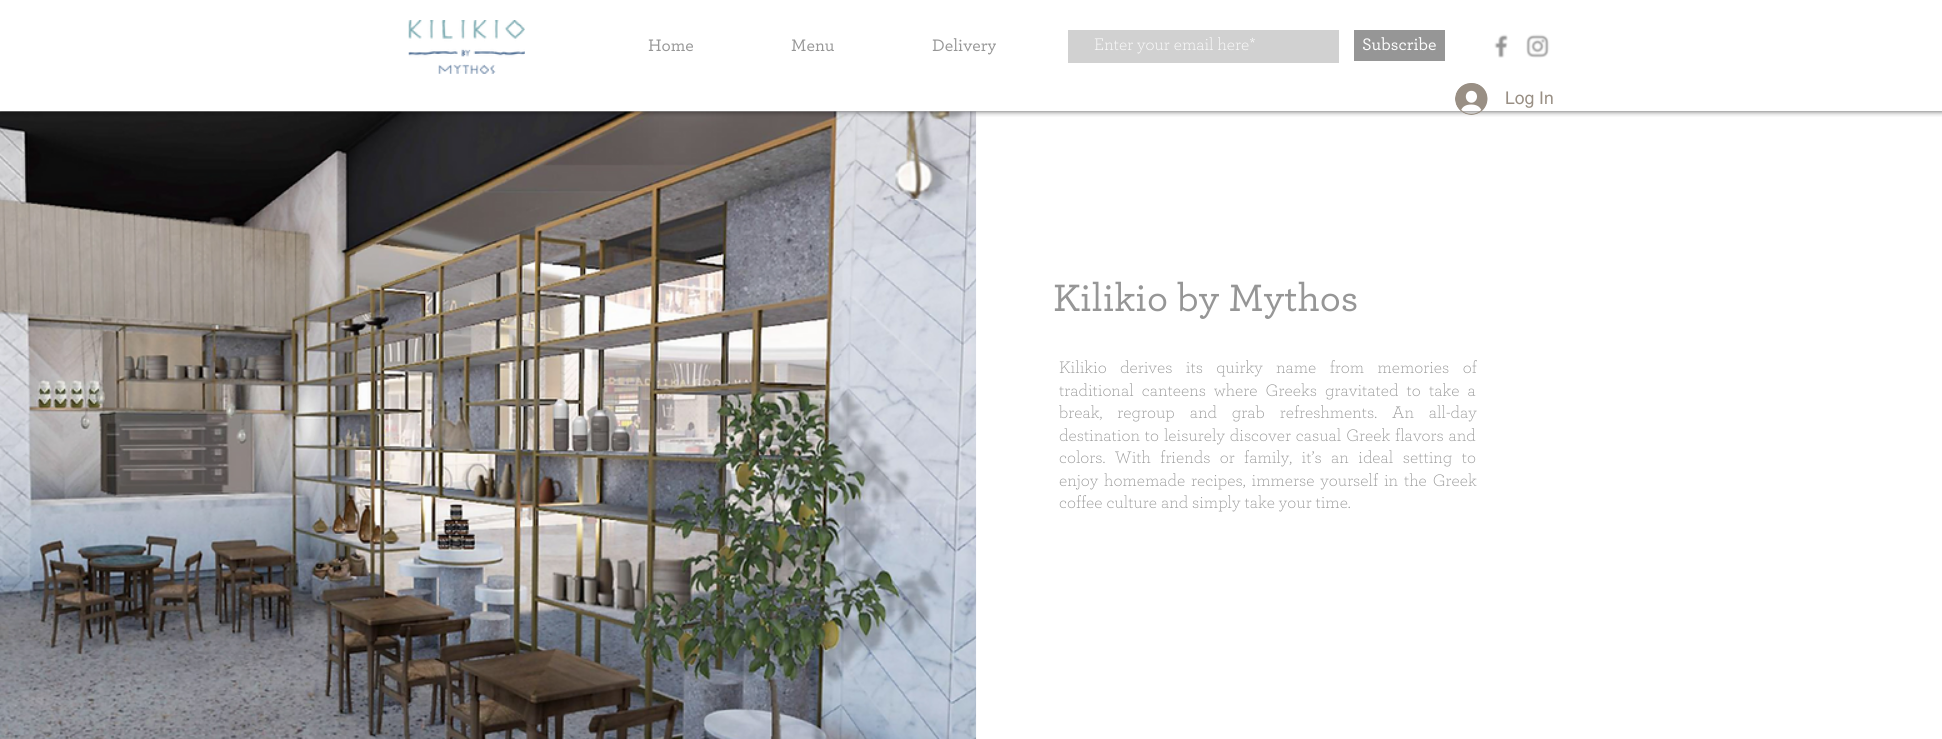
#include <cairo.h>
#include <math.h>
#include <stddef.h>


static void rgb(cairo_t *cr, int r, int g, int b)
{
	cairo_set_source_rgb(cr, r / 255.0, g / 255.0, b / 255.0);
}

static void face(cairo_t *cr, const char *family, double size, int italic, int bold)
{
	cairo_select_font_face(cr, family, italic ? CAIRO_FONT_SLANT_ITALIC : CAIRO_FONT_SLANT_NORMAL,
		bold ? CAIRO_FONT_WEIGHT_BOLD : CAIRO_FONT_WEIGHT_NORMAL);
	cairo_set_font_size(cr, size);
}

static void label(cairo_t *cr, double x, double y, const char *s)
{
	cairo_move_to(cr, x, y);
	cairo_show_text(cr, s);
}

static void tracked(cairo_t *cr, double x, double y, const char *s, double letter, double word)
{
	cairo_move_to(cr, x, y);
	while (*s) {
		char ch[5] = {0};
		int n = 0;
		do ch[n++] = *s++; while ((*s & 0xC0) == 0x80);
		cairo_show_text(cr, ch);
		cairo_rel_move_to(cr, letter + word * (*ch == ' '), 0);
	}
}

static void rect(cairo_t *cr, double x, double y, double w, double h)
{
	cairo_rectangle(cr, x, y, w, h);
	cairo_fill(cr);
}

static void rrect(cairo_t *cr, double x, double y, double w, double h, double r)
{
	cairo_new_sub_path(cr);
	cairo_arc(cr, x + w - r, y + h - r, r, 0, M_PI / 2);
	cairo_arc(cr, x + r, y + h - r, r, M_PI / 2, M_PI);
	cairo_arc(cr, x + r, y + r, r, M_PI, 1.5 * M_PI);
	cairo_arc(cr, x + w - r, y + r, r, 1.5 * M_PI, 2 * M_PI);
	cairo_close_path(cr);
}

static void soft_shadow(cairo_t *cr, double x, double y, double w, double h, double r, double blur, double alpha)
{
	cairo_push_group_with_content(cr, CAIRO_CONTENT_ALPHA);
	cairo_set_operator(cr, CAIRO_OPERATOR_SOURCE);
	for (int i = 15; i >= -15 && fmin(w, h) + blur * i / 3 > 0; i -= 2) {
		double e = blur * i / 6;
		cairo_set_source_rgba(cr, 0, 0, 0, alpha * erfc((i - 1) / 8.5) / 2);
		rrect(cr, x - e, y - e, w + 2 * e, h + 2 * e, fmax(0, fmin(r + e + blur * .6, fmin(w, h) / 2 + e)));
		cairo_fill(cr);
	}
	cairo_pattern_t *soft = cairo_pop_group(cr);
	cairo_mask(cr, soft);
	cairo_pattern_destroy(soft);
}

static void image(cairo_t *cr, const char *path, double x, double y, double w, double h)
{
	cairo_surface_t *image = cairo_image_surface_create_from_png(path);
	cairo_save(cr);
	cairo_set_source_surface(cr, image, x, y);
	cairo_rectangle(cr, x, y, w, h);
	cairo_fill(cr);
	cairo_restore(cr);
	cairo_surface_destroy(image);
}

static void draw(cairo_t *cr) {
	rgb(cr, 255, 255, 255);
	cairo_paint(cr);
	image(cr, "image4.png", 0, 111, 977, 628);
	cairo_save(cr);
	cairo_rectangle(cr, 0, 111, 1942, 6);
	cairo_clip(cr);
	rgb(cr, 0, 0, 0);
	soft_shadow(cr, 0, 0, 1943, 111, 0, 3, 0.7);
	cairo_restore(cr);
	image(cr, "image0.png", 408, 20, 117, 54);
	face(cr, "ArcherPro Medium", 17.5, 0, 0);
	rgb(cr, 150, 150, 150);
	label(cr, 648, 51, "Home");
	label(cr, 791, 51, "Menu");
	label(cr, 932, 51, "Delivery");
	rgb(cr, 209, 209, 209);
	rect(cr, 1068, 30, 271, 33);
	face(cr, "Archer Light", 17.5, 0, 0);
	rgb(cr, 255, 255, 255);
	label(cr, 1094, 50, "Enter your email here*");
	rgb(cr, 150, 150, 150);
	rect(cr, 1354, 30, 91, 31);
	face(cr, "ArcherPro Medium", 17.5, 0, 0);
	rgb(cr, 255, 255, 255);
	label(cr, 1362, 50, "Subscribe");
	image(cr, "image1.png", 1494, 34, 14, 24);
	image(cr, "image2.png", 1526, 34, 24, 24);
	image(cr, "image3.png", 1455, 83, 33, 32);
	face(cr, "helvetica", 17.5, 0, 0);
	rgb(cr, 153, 143, 132);
	label(cr, 1505, 104, "Log In");
	face(cr, "ArcherPro Medium", 40, 0, 0);
	rgb(cr, 150, 150, 150);
	label(cr, 1053, 311, "Kilikio by Mythos");
	face(cr, "Archer Light", 17.5, 0, 0);
	tracked(cr, 1059, 373, "Kilikio derives its quirky name from memories of", 0, 9.5);
	tracked(cr, 1059, 396, "traditional canteens where Greeks gravitated to take a", 0, 4.25);
	tracked(cr, 1059, 418, "break, regroup and grab refreshments. An all-day", 0, 11);
	tracked(cr, 1059, 441, "destination to leisurely discover casual Greek flavors and", 0, 1);
	tracked(cr, 1059, 463, "colors. With friends or family, it’s an ideal setting to", 0, 5.5);
	tracked(cr, 1059, 486, "enjoy homemade recipes, immerse yourself in the Greek", 0, 2);
	label(cr, 1059, 508, "coffee culture and simply take your time.");
}

int main(void) {
	cairo_surface_t *surface = cairo_image_surface_create(CAIRO_FORMAT_RGB24, 1942, 739);
	cairo_t *cr = cairo_create(surface);
	cairo_font_options_t *options = cairo_font_options_create();
	cairo_font_options_set_hint_metrics(options, CAIRO_HINT_METRICS_OFF);
	cairo_font_options_set_hint_style(options, CAIRO_HINT_STYLE_NONE);
	cairo_set_font_options(cr, options);
	cairo_set_miter_limit(cr, 4);
	draw(cr);
	cairo_surface_write_to_png(surface, "render.png");
	cairo_font_options_destroy(options);
	cairo_destroy(cr);
	cairo_surface_destroy(surface);
	return 0;
}
